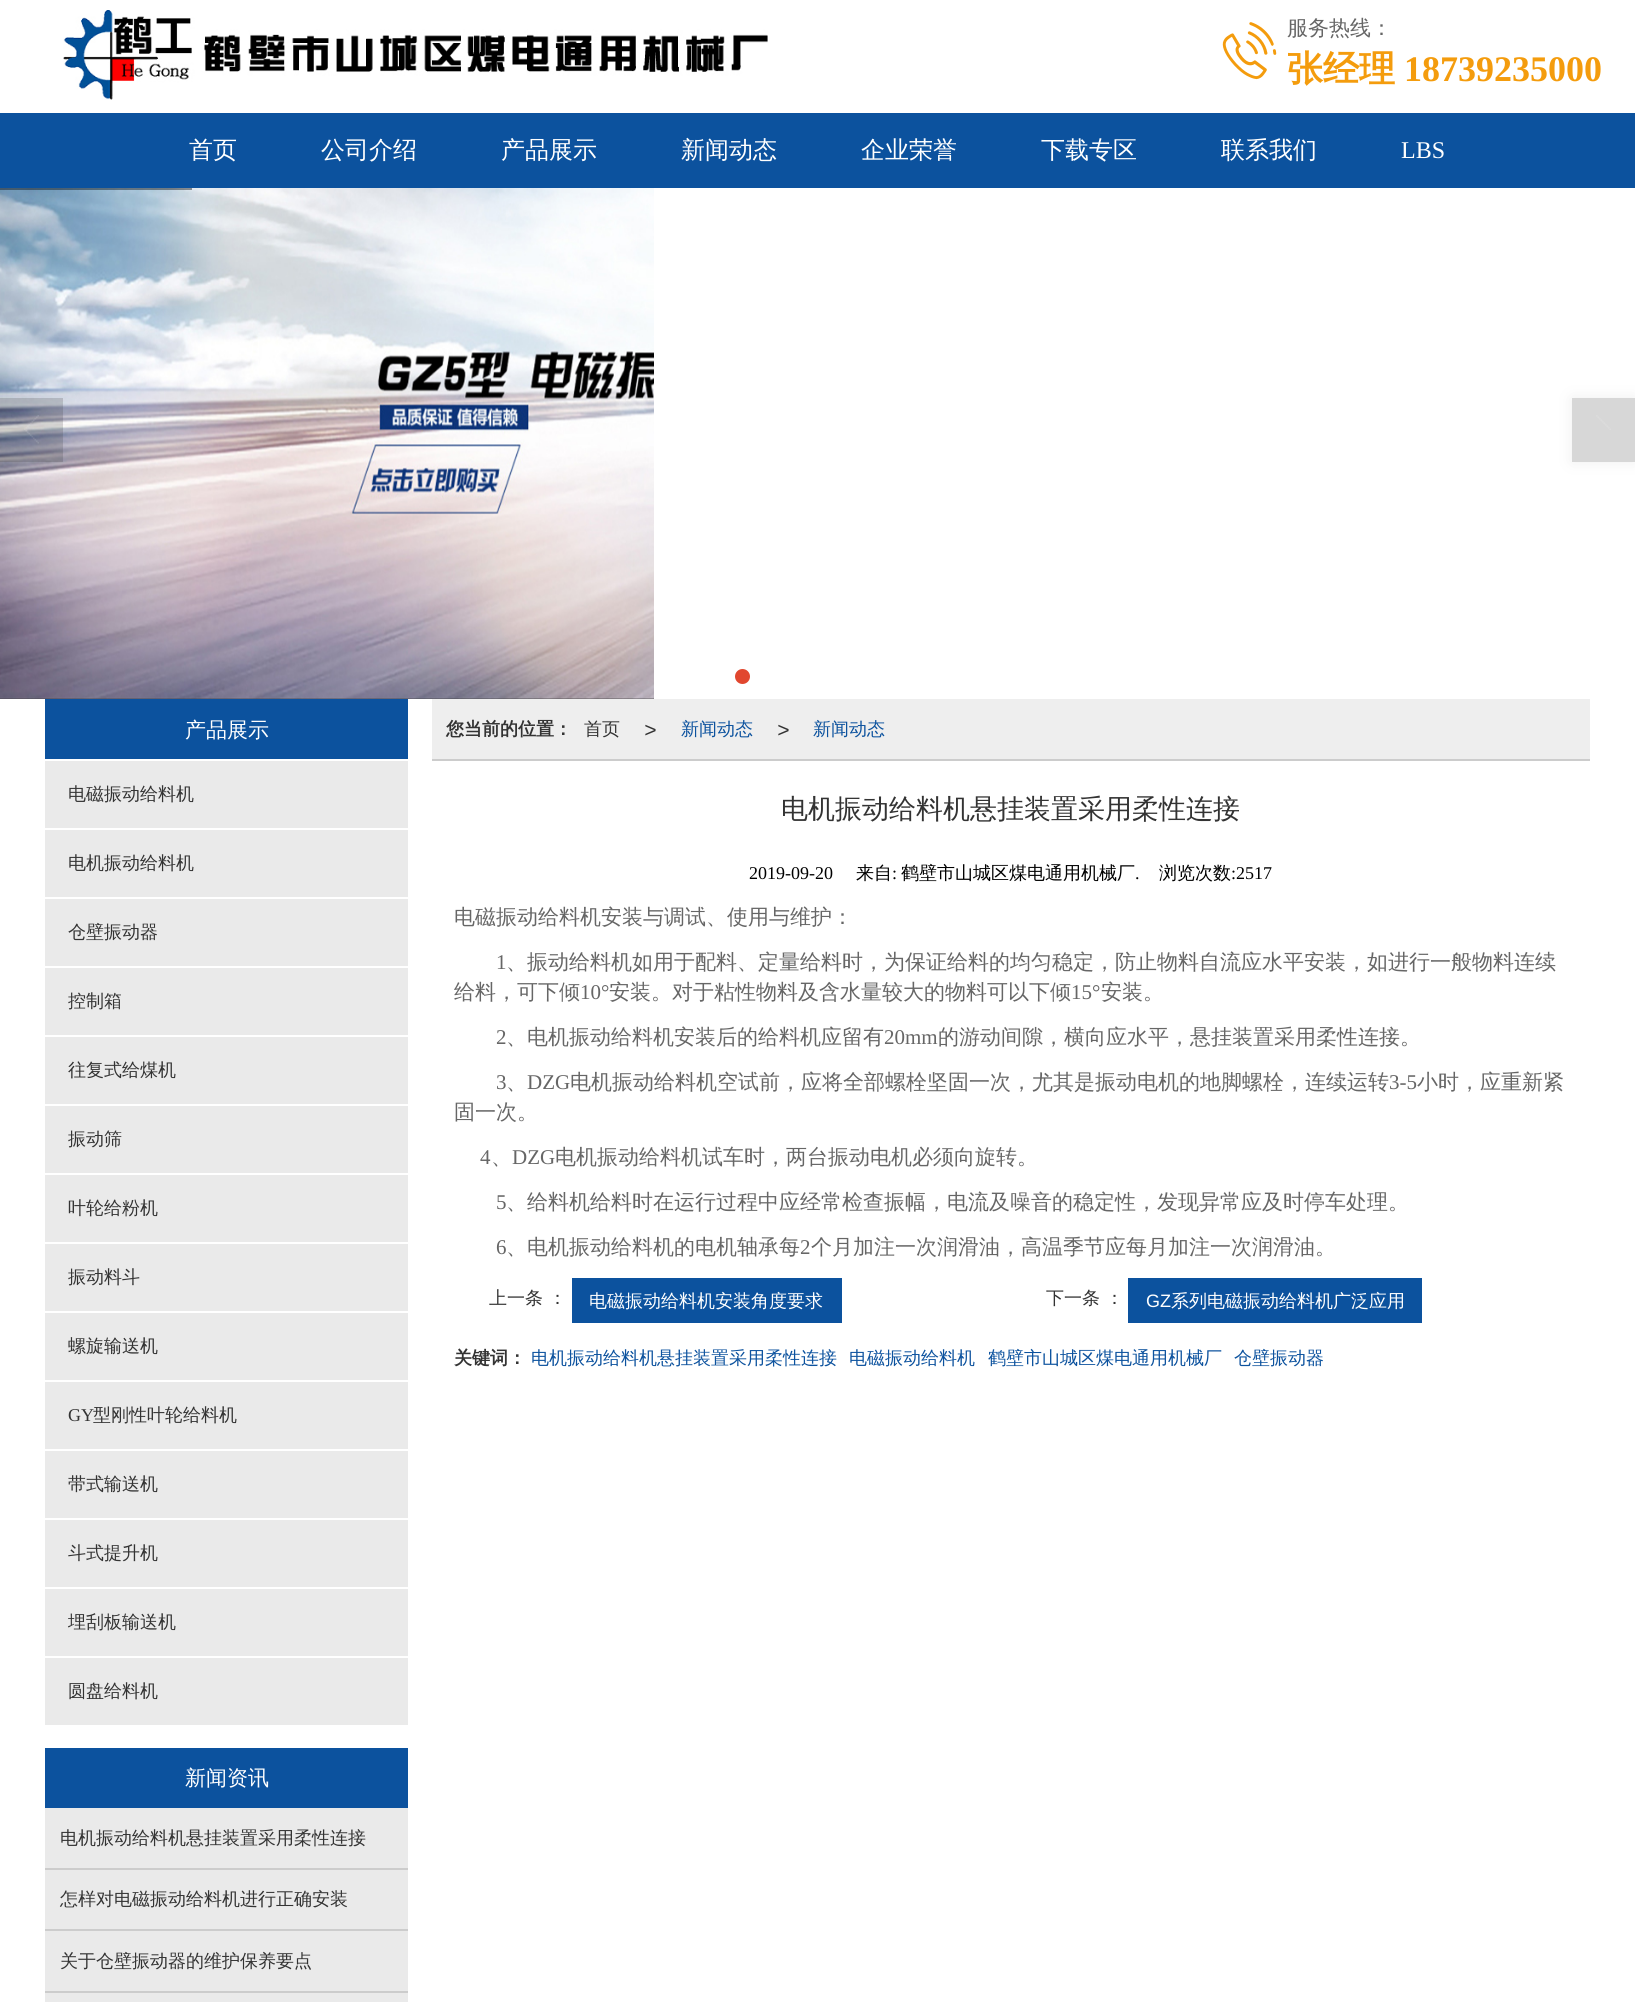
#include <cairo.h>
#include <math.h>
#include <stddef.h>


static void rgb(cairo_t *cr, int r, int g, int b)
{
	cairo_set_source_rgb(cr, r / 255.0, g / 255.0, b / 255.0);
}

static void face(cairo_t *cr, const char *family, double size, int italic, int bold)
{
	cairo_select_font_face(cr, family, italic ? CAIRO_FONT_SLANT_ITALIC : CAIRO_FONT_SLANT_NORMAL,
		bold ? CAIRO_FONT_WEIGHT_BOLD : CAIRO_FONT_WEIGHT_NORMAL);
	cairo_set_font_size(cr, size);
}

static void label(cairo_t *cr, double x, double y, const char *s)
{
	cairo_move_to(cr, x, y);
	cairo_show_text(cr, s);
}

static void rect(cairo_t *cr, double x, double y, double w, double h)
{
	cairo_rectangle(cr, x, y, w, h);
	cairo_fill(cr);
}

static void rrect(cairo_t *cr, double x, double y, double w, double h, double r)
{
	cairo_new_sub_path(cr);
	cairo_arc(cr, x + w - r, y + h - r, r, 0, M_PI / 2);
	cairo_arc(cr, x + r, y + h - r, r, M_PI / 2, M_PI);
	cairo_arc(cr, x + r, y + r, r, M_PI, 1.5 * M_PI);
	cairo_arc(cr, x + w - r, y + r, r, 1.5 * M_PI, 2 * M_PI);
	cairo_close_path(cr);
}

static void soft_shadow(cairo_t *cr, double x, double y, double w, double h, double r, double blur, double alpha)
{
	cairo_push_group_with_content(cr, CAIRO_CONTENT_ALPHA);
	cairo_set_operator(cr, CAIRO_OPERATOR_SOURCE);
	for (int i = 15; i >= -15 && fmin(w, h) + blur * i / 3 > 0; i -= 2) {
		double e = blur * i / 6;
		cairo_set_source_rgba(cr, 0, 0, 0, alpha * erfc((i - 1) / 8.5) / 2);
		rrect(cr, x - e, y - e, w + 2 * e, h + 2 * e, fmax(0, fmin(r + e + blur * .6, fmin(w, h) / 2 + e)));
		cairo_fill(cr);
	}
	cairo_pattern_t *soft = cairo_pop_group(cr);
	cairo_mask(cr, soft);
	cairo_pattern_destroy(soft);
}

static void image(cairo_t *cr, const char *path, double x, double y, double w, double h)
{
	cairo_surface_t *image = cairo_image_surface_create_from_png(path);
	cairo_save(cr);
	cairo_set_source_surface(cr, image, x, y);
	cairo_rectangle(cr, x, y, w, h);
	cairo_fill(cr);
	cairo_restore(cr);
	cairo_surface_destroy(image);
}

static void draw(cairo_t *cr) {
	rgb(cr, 255, 255, 255);
	cairo_paint(cr);
	image(cr, "image0.png", 63, 10, 705, 90);
	image(cr, "image1.png", 1222, 22, 55, 58);
	face(cr, "WenQuanYi Zen Hei Medium", 21, 0, 0);
	rgb(cr, 102, 102, 102);
	label(cr, 1287, 35, "服务热线：");
	face(cr, "WenQuanYi Zen Hei", 36, 0, 1);
	rgb(cr, 244, 156, 13);
	label(cr, 1287, 81, "张经理");
	face(cr, "Liberation Serif", 36, 0, 1);
	label(cr, 1404, 81, "18739235000");
	rgb(cr, 12, 82, 158);
	rect(cr, 0, 113, 1635, 75);
	face(cr, "WenQuanYi Zen Hei Medium", 24, 0, 0);
	rgb(cr, 255, 255, 255);
	label(cr, 189, 158, "首页");
	label(cr, 321, 158, "公司介绍");
	label(cr, 501, 158, "产品展示");
	label(cr, 681, 158, "新闻动态");
	label(cr, 861, 158, "企业荣誉");
	label(cr, 1041, 158, "下载专区");
	label(cr, 1221, 158, "联系我们");
	face(cr, "Liberation Serif", 24, 0, 0);
	label(cr, 1401, 158, "LBS");
	rgb(cr, 51, 51, 51);
	rect(cr, 0, 698, 654, 1);
	image(cr, "image2.png", 0, 188, 164, 511);
	image(cr, "image3.png", 164, 188, 163, 511);
	image(cr, "image4.png", 327, 188, 164, 511);
	image(cr, "image5.png", 491, 188, 163, 511);
	cairo_set_source_rgba(cr, 0, 0, 0, 0.4);
	rect(cr, 0, 188, 192, 2);
	rgb(cr, 204, 204, 204);
	soft_shadow(cr, 1572, 398, 63, 64, 0, 7.5, 0.3);
	rgb(cr, 215, 215, 215);
	rect(cr, 1572, 398, 63, 64);
	image(cr, "image6.png", 1596, 415, 15, 15);
	cairo_set_source_rgba(cr, 0.224, 0.224, 0.224, 0.2);
	rect(cr, 0, 398, 63, 64);
	image(cr, "image7.png", 24, 415, 15, 29);
	rgb(cr, 225, 71, 47);
	cairo_arc(cr, 742.5, 676.5, 7.5, 0, 2 * M_PI);
	cairo_fill(cr);
	rgb(cr, 12, 82, 158);
	rect(cr, 45, 699, 363, 60);
	face(cr, "WenQuanYi Zen Hei Medium", 21, 0, 0);
	rgb(cr, 255, 255, 255);
	label(cr, 185, 737, "产品展示");
	rgb(cr, 234, 234, 234);
	rect(cr, 45, 761, 363, 964);
	face(cr, "WenQuanYi Zen Hei Medium", 18, 0, 0);
	rgb(cr, 51, 51, 51);
	label(cr, 68, 800, "电磁振动给料机");
	rgb(cr, 255, 255, 255);
	rect(cr, 45, 828, 363, 2);
	rgb(cr, 51, 51, 51);
	label(cr, 68, 869, "电机振动给料机");
	rgb(cr, 255, 255, 255);
	rect(cr, 45, 897, 363, 2);
	rgb(cr, 51, 51, 51);
	label(cr, 68, 938, "仓壁振动器");
	rgb(cr, 255, 255, 255);
	rect(cr, 45, 966, 363, 2);
	rgb(cr, 51, 51, 51);
	label(cr, 68, 1007, "控制箱");
	rgb(cr, 255, 255, 255);
	rect(cr, 45, 1035, 363, 2);
	rgb(cr, 51, 51, 51);
	label(cr, 68, 1076, "往复式给煤机");
	rgb(cr, 255, 255, 255);
	rect(cr, 45, 1104, 363, 2);
	rgb(cr, 51, 51, 51);
	label(cr, 68, 1145, "振动筛");
	rgb(cr, 255, 255, 255);
	rect(cr, 45, 1173, 363, 2);
	rgb(cr, 51, 51, 51);
	label(cr, 68, 1214, "叶轮给粉机");
	rgb(cr, 255, 255, 255);
	rect(cr, 45, 1242, 363, 2);
	rgb(cr, 51, 51, 51);
	label(cr, 68, 1283, "振动料斗");
	rgb(cr, 255, 255, 255);
	rect(cr, 45, 1311, 363, 2);
	rgb(cr, 51, 51, 51);
	label(cr, 68, 1352, "螺旋输送机");
	rgb(cr, 255, 255, 255);
	rect(cr, 45, 1380, 363, 2);
	face(cr, "Liberation Serif", 18, 0, 0);
	rgb(cr, 51, 51, 51);
	label(cr, 68, 1421, "GY");
	face(cr, "WenQuanYi Zen Hei Medium", 18, 0, 0);
	label(cr, 93, 1421, "型刚性叶轮给料机");
	rgb(cr, 255, 255, 255);
	rect(cr, 45, 1449, 363, 2);
	rgb(cr, 51, 51, 51);
	label(cr, 68, 1490, "带式输送机");
	rgb(cr, 255, 255, 255);
	rect(cr, 45, 1518, 363, 2);
	rgb(cr, 51, 51, 51);
	label(cr, 68, 1559, "斗式提升机");
	rgb(cr, 255, 255, 255);
	rect(cr, 45, 1587, 363, 2);
	rgb(cr, 51, 51, 51);
	label(cr, 68, 1628, "埋刮板输送机");
	rgb(cr, 255, 255, 255);
	rect(cr, 45, 1656, 363, 2);
	rgb(cr, 51, 51, 51);
	label(cr, 68, 1697, "圆盘给料机");
	rgb(cr, 12, 82, 158);
	rect(cr, 45, 1748, 363, 60);
	face(cr, "WenQuanYi Zen Hei Medium", 21, 0, 0);
	rgb(cr, 255, 255, 255);
	label(cr, 185, 1785, "新闻资讯");
	rgb(cr, 234, 234, 234);
	rect(cr, 45, 1808, 363, 194);
	rgb(cr, 204, 204, 204);
	rect(cr, 45, 1868, 363, 2);
	face(cr, "WenQuanYi Zen Hei Medium", 18, 0, 0);
	rgb(cr, 51, 51, 51);
	label(cr, 60, 1844, "电机振动给料机悬挂装置采用柔性连接");
	rgb(cr, 204, 204, 204);
	rect(cr, 45, 1929, 363, 2);
	rgb(cr, 51, 51, 51);
	label(cr, 60, 1905, "怎样对电磁振动给料机进行正确安装");
	rgb(cr, 204, 204, 204);
	rect(cr, 45, 1991, 363, 2);
	rgb(cr, 51, 51, 51);
	label(cr, 60, 1967, "关于仓壁振动器的维护保养要点");
	rgb(cr, 238, 238, 238);
	rect(cr, 432, 699, 1158, 60);
	rgb(cr, 204, 204, 204);
	rect(cr, 432, 759, 1158, 2);
	face(cr, "WenQuanYi Zen Hei", 18, 0, 1);
	rgb(cr, 51, 51, 51);
	label(cr, 446, 735, "您当前的位置：");
	face(cr, "WenQuanYi Zen Hei Medium", 18, 0, 0);
	label(cr, 584, 735, "首页");
	face(cr, "Liberation Sans", 21, 1, 0);
	label(cr, 644, 737, ">");
	face(cr, "WenQuanYi Zen Hei Medium", 18, 0, 0);
	rgb(cr, 12, 82, 158);
	label(cr, 681, 735, "新闻动态");
	face(cr, "Liberation Sans", 21, 1, 0);
	rgb(cr, 51, 51, 51);
	label(cr, 777, 737, ">");
	face(cr, "WenQuanYi Zen Hei Medium", 18, 0, 0);
	rgb(cr, 12, 82, 158);
	label(cr, 813, 735, "新闻动态");
	face(cr, "WenQuanYi Zen Hei Medium", 27, 0, 0);
	rgb(cr, 51, 51, 51);
	label(cr, 781, 818, "电机振动给料机悬挂装置采用柔性连接");
	face(cr, "Liberation Serif", 18, 0, 0);
	rgb(cr, 0, 0, 0);
	label(cr, 749, 879, "2019-09-20");
	face(cr, "WenQuanYi Zen Hei Medium", 18, 0, 0);
	label(cr, 856, 879, "来自");
	face(cr, "Liberation Serif", 18, 0, 0);
	label(cr, 892, 879, ":");
	face(cr, "WenQuanYi Zen Hei Medium", 18, 0, 0);
	label(cr, 901, 879, "鹤壁市山城区煤电通用机械厂");
	face(cr, "Liberation Serif", 18, 0, 0);
	label(cr, 1135, 879, ".");
	face(cr, "WenQuanYi Zen Hei Medium", 18, 0, 0);
	label(cr, 1159, 879, "浏览次数");
	face(cr, "Liberation Serif", 18, 0, 0);
	label(cr, 1231, 879, ":2517");
	face(cr, "WenQuanYi Zen Hei Medium", 21, 0, 0);
	rgb(cr, 102, 102, 102);
	label(cr, 454, 924, "电磁振动给料机安装与调试、使用与维护：");
	face(cr, "Liberation Serif", 21, 0, 0);
	label(cr, 496, 969, "1");
	face(cr, "WenQuanYi Zen Hei Medium", 21, 0, 0);
	label(cr, 506, 969, "、振动给料机如用于配料、定量给料时，为保证给料的均匀稳定，防止物料自流应水平安装，如进行一般物料连续");
	label(cr, 454, 999, "给料，可下倾");
	face(cr, "Liberation Serif", 21, 0, 0);
	label(cr, 580, 999, "10°");
	face(cr, "WenQuanYi Zen Hei Medium", 21, 0, 0);
	label(cr, 609, 999, "安装。对于粘性物料及含水量较大的物料可以下倾");
	face(cr, "Liberation Serif", 21, 0, 0);
	label(cr, 1071, 999, "15°");
	face(cr, "WenQuanYi Zen Hei Medium", 21, 0, 0);
	label(cr, 1101, 999, "安装。");
	face(cr, "Liberation Serif", 21, 0, 0);
	label(cr, 496, 1044, "2");
	face(cr, "WenQuanYi Zen Hei Medium", 21, 0, 0);
	label(cr, 506, 1044, "、电机振动给料机安装后的给料机应留有");
	face(cr, "Liberation Serif", 21, 0, 0);
	label(cr, 884, 1044, "20mm");
	face(cr, "WenQuanYi Zen Hei Medium", 21, 0, 0);
	label(cr, 938, 1044, "的游动间隙，横向应水平，悬挂装置采用柔性连接。");
	face(cr, "Liberation Serif", 21, 0, 0);
	label(cr, 496, 1089, "3");
	face(cr, "WenQuanYi Zen Hei Medium", 21, 0, 0);
	label(cr, 506, 1089, "、");
	face(cr, "Liberation Serif", 21, 0, 0);
	label(cr, 527, 1089, "DZG");
	face(cr, "WenQuanYi Zen Hei Medium", 21, 0, 0);
	label(cr, 570, 1089, "电机振动给料机空试前，应将全部螺栓坚固一次，尤其是振动电机的地脚螺栓，连续运转");
	face(cr, "Liberation Serif", 21, 0, 0);
	label(cr, 1389, 1089, "3-5");
	face(cr, "WenQuanYi Zen Hei Medium", 21, 0, 0);
	label(cr, 1417, 1089, "小时，应重新紧");
	label(cr, 454, 1119, "固一次。");
	face(cr, "Liberation Serif", 21, 0, 0);
	label(cr, 480, 1164, "4");
	face(cr, "WenQuanYi Zen Hei Medium", 21, 0, 0);
	label(cr, 491, 1164, "、");
	face(cr, "Liberation Serif", 21, 0, 0);
	label(cr, 512, 1164, "DZG");
	face(cr, "WenQuanYi Zen Hei Medium", 21, 0, 0);
	label(cr, 555, 1164, "电机振动给料机试车时，两台振动电机必须向旋转。");
	face(cr, "Liberation Serif", 21, 0, 0);
	label(cr, 496, 1209, "5");
	face(cr, "WenQuanYi Zen Hei Medium", 21, 0, 0);
	label(cr, 506, 1209, "、给料机给料时在运行过程中应经常检查振幅，电流及噪音的稳定性，发现异常应及时停车处理。");
	face(cr, "Liberation Serif", 21, 0, 0);
	label(cr, 496, 1254, "6");
	face(cr, "WenQuanYi Zen Hei Medium", 21, 0, 0);
	label(cr, 506, 1254, "、电机振动给料机的电机轴承每");
	face(cr, "Liberation Serif", 21, 0, 0);
	label(cr, 800, 1254, "2");
	face(cr, "WenQuanYi Zen Hei Medium", 21, 0, 0);
	label(cr, 811, 1254, "个月加注一次润滑油，高温季节应每月加注一次润滑油。");
	face(cr, "WenQuanYi Zen Hei Medium", 18, 0, 0);
	rgb(cr, 51, 51, 51);
	label(cr, 489, 1304, "上一条 ：");
	rgb(cr, 12, 82, 158);
	rect(cr, 572, 1278, 270, 45);
	rgb(cr, 255, 255, 255);
	label(cr, 589, 1307, "电磁振动给料机安装角度要求");
	rgb(cr, 51, 51, 51);
	label(cr, 1046, 1304, "下一条 ：");
	rgb(cr, 12, 82, 158);
	rect(cr, 1128, 1278, 294, 45);
	face(cr, "Liberation Sans", 18, 0, 0);
	rgb(cr, 255, 255, 255);
	label(cr, 1146, 1307, "GZ");
	face(cr, "WenQuanYi Zen Hei Medium", 18, 0, 0);
	label(cr, 1171, 1307, "系列电磁振动给料机广泛应用");
	face(cr, "WenQuanYi Zen Hei", 18, 0, 1);
	rgb(cr, 51, 51, 51);
	label(cr, 454, 1364, "关键词：");
	face(cr, "WenQuanYi Zen Hei Medium", 18, 0, 0);
	rgb(cr, 12, 82, 158);
	label(cr, 531, 1364, "电机振动给料机悬挂装置采用柔性连接");
	label(cr, 849, 1364, "电磁振动给料机");
	label(cr, 988, 1364, "鹤壁市山城区煤电通用机械厂");
	label(cr, 1234, 1364, "仓壁振动器");
}

int main(void) {
	cairo_surface_t *surface = cairo_image_surface_create(CAIRO_FORMAT_RGB24, 1635, 2002);
	cairo_t *cr = cairo_create(surface);
	cairo_font_options_t *options = cairo_font_options_create();
	cairo_font_options_set_hint_metrics(options, CAIRO_HINT_METRICS_OFF);
	cairo_font_options_set_hint_style(options, CAIRO_HINT_STYLE_NONE);
	cairo_set_font_options(cr, options);
	cairo_set_miter_limit(cr, 4);
	draw(cr);
	cairo_surface_write_to_png(surface, "render.png");
	cairo_font_options_destroy(options);
	cairo_destroy(cr);
	cairo_surface_destroy(surface);
	return 0;
}
